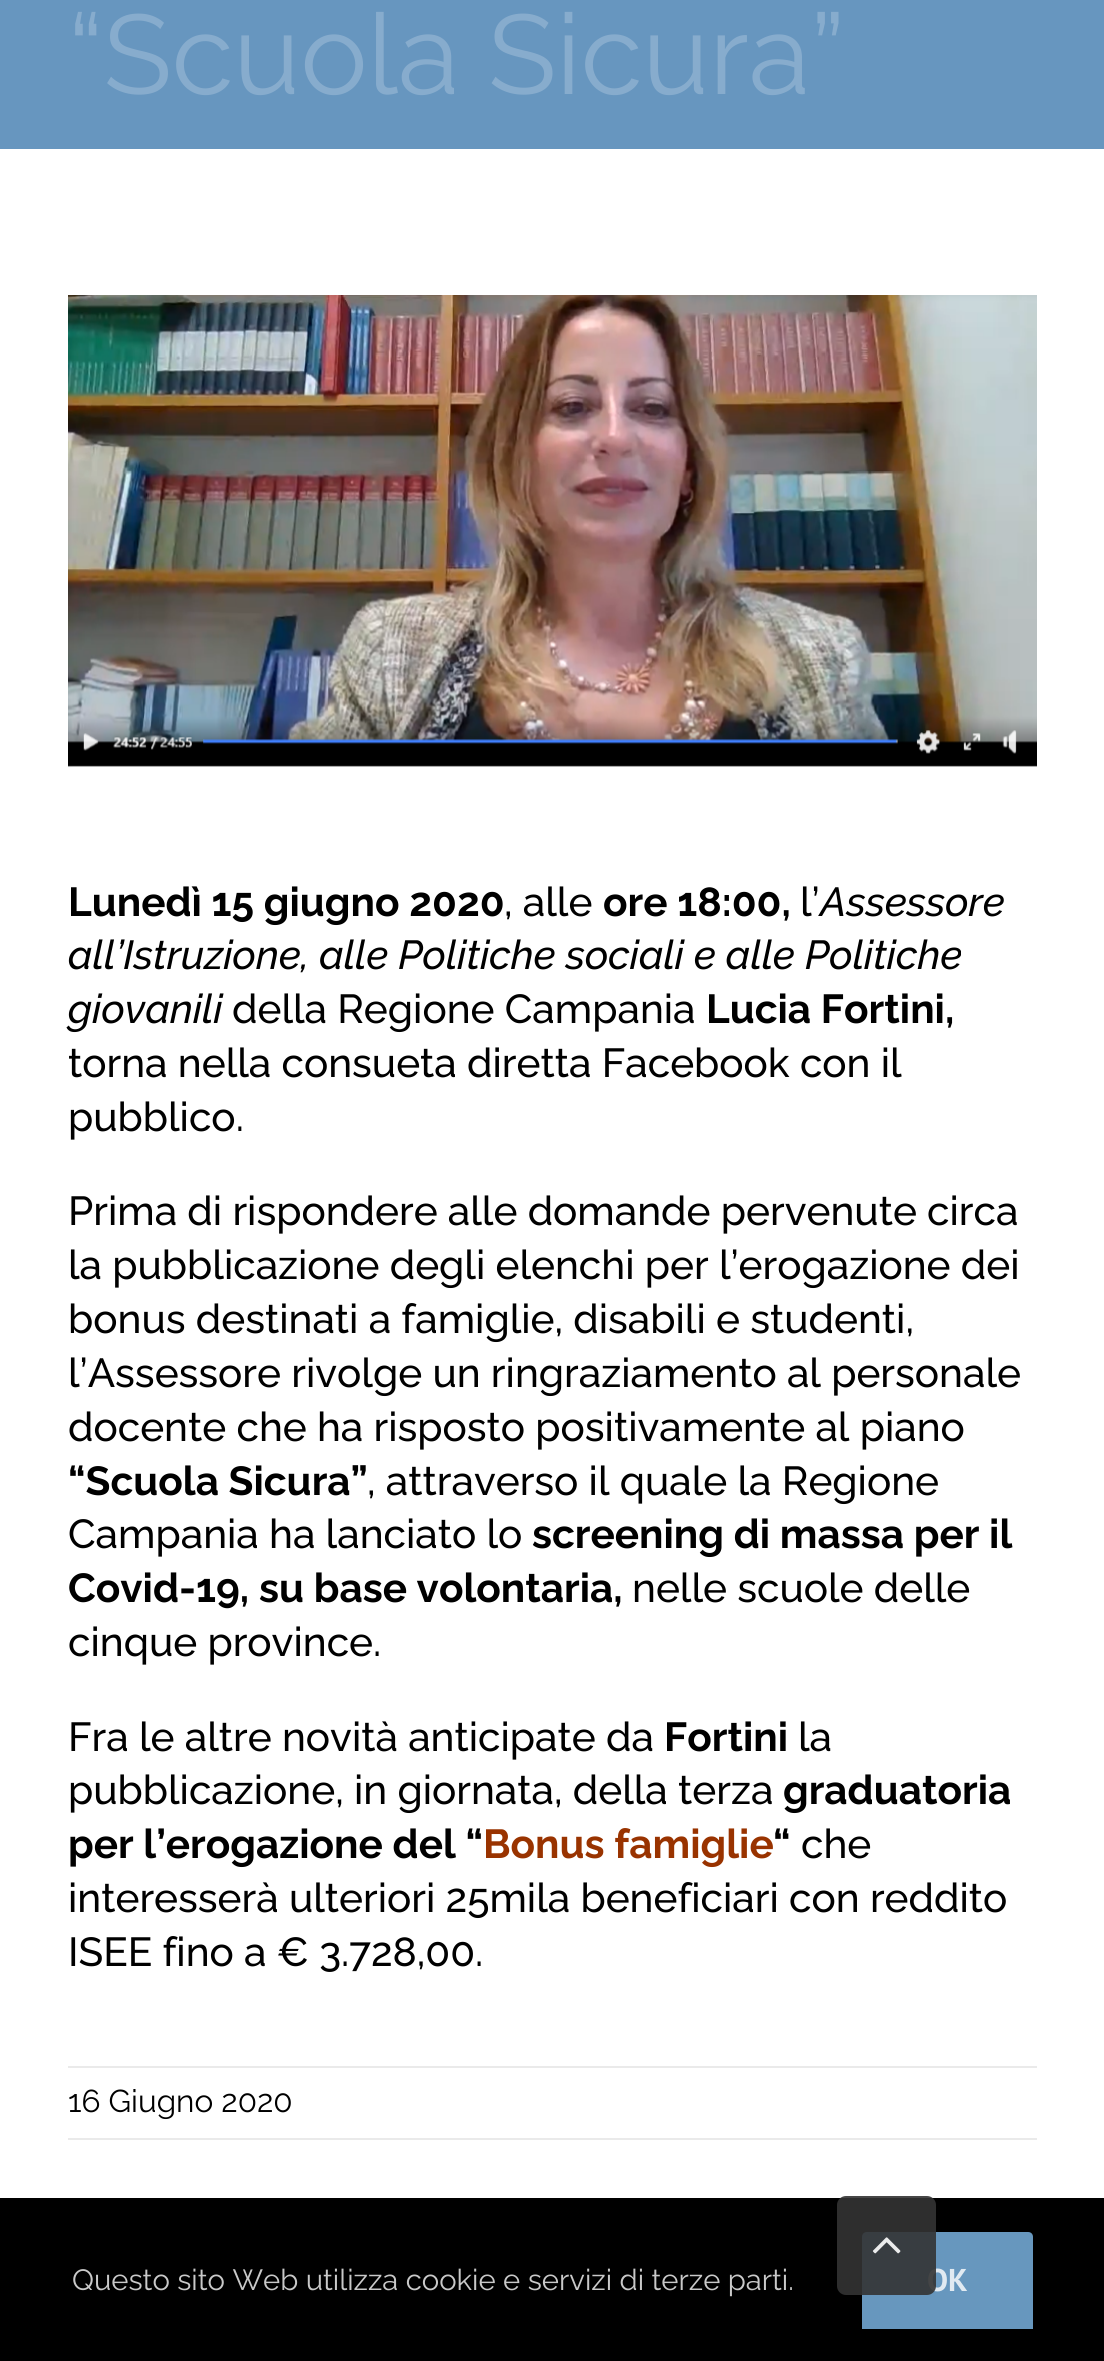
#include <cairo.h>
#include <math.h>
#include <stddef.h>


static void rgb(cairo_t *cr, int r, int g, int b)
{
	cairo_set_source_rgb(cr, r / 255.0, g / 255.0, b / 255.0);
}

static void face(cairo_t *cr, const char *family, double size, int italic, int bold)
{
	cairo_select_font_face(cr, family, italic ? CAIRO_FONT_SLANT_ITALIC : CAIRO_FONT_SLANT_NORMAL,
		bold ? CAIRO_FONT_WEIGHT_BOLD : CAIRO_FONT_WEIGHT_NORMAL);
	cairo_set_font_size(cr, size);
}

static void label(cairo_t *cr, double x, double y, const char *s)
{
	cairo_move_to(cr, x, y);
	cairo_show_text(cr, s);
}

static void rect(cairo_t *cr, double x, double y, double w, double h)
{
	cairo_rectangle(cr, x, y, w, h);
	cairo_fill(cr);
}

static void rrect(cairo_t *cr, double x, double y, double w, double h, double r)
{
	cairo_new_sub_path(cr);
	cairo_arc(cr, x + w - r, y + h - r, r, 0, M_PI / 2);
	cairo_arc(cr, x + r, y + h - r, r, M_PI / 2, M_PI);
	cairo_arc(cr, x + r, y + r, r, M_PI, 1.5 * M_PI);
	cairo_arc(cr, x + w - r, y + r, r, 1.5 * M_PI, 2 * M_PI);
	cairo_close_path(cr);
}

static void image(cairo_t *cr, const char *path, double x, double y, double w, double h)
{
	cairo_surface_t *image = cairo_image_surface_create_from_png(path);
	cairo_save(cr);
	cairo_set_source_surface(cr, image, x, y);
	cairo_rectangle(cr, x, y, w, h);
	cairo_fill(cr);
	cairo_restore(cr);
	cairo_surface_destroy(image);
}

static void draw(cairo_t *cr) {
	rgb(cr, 255, 255, 255);
	cairo_paint(cr);
	rgb(cr, 103, 150, 191);
	rect(cr, 0, 0, 1104, 149);
	face(cr, "Raleway", 112.5, 0, 0);
	rgb(cr, 135, 172, 205);
	label(cr, 68, 94, "“Scuola Sicura”");
	image(cr, "image0.png", 68, 295, 969, 473);
	face(cr, "Raleway", 40.5, 0, 1);
	rgb(cr, 0, 0, 0);
	label(cr, 68, 916, "Lunedì 15 giugno 2020");
	face(cr, "Raleway Medium", 40.5, 0, 0);
	label(cr, 504, 916, ", alle");
	face(cr, "Raleway", 40.5, 0, 1);
	label(cr, 603, 916, "ore 18:00,");
	face(cr, "Raleway Medium", 40.5, 0, 0);
	label(cr, 800, 916, "l’");
	face(cr, "Raleway Medium", 40.5, 1, 0);
	label(cr, 820, 916, "Assessore");
	label(cr, 68, 969, "all’Istruzione, alle Politiche sociali e alle Politiche");
	label(cr, 68, 1023, "giovanili");
	face(cr, "Raleway Medium", 40.5, 0, 0);
	label(cr, 232, 1023, "della Regione Campania");
	face(cr, "Raleway", 40.5, 0, 1);
	label(cr, 706, 1023, "Lucia Fortini,");
	face(cr, "Raleway Medium", 40.5, 0, 0);
	label(cr, 68, 1077, "torna nella consueta diretta Facebook con il");
	label(cr, 68, 1131, "pubblico.");
	label(cr, 68, 1225, "Prima di rispondere alle domande pervenute circa");
	label(cr, 68, 1279, "la pubblicazione degli elenchi per l’erogazione dei");
	label(cr, 68, 1333, "bonus destinati a famiglie, disabili e studenti,");
	label(cr, 68, 1387, "l’Assessore rivolge un ringraziamento al personale");
	label(cr, 68, 1441, "docente che ha risposto positivamente al piano");
	face(cr, "Raleway", 40.5, 0, 1);
	label(cr, 68, 1495, "“Scuola Sicura”");
	face(cr, "Raleway Medium", 40.5, 0, 0);
	label(cr, 367, 1495, ", attraverso il quale la Regione");
	label(cr, 68, 1548, "Campania ha lanciato lo");
	face(cr, "Raleway", 40.5, 0, 1);
	label(cr, 532, 1548, "screening di massa per il");
	label(cr, 68, 1602, "Covid-19, su base volontaria,");
	face(cr, "Raleway Medium", 40.5, 0, 0);
	label(cr, 632, 1602, "nelle scuole delle");
	label(cr, 68, 1656, "cinque province.");
	label(cr, 68, 1751, "Fra le altre novità anticipate da");
	face(cr, "Raleway", 40.5, 0, 1);
	label(cr, 664, 1751, "Fortini");
	face(cr, "Raleway Medium", 40.5, 0, 0);
	label(cr, 798, 1751, "la");
	label(cr, 68, 1804, "pubblicazione, in giornata, della terza");
	face(cr, "Raleway", 40.5, 0, 1);
	label(cr, 783, 1804, "graduatoria");
	label(cr, 68, 1858, "per l’erogazione del “");
	rgb(cr, 153, 51, 0);
	label(cr, 483, 1858, "Bonus famiglie");
	rgb(cr, 0, 0, 0);
	label(cr, 773, 1858, "“");
	face(cr, "Raleway Medium", 40.5, 0, 0);
	label(cr, 801, 1858, "che");
	label(cr, 68, 1912, "interesserà ulteriori 25mila beneficiari con reddito");
	label(cr, 68, 1966, "ISEE fino a € 3.728,00.");
	rgb(cr, 234, 234, 234);
	rect(cr, 68, 2066, 969, 2);
	rect(cr, 68, 2138, 969, 2);
	face(cr, "Raleway", 31.5, 0, 0);
	rgb(cr, 0, 0, 0);
	label(cr, 68, 2112, "16 Giugno 2020");
	rect(cr, 0, 2198, 1104, 163);
	rgb(cr, 103, 151, 190);
	cairo_new_path(cr);
	cairo_move_to(cr, 867, 2232);
	cairo_line_to(cr, 1028, 2232);
	cairo_curve_to(cr, 1031, 2232, 1033, 2234, 1033, 2237);
	cairo_line_to(cr, 1033, 2329);
	cairo_line_to(cr, 862, 2329);
	cairo_line_to(cr, 862, 2237);
	cairo_curve_to(cr, 862, 2234, 864, 2232, 867, 2232);
	cairo_close_path(cr);
	cairo_fill(cr);
	face(cr, "PT Sans", 31.5, 0, 1);
	rgb(cr, 225, 234, 242);
	label(cr, 927, 2291, "OK");
	cairo_set_source_rgba(cr, 0.2, 0.2, 0.2, 0.9);
	rrect(cr, 837, 2196, 99, 99, 9);
	cairo_fill(cr);
	image(cr, "image1.png", 872, 2237, 29, 17);
	face(cr, "Raleway", 29.25, 0, 0);
	rgb(cr, 201, 201, 201);
	label(cr, 72, 2290, "Questo sito Web utilizza cookie e servizi di terze parti.");
}

int main(void) {
	cairo_surface_t *surface = cairo_image_surface_create(CAIRO_FORMAT_RGB24, 1104, 2361);
	cairo_t *cr = cairo_create(surface);
	cairo_font_options_t *options = cairo_font_options_create();
	cairo_font_options_set_hint_metrics(options, CAIRO_HINT_METRICS_OFF);
	cairo_font_options_set_hint_style(options, CAIRO_HINT_STYLE_NONE);
	cairo_set_font_options(cr, options);
	cairo_set_miter_limit(cr, 4);
	draw(cr);
	cairo_surface_write_to_png(surface, "render.png");
	cairo_font_options_destroy(options);
	cairo_destroy(cr);
	cairo_surface_destroy(surface);
	return 0;
}
